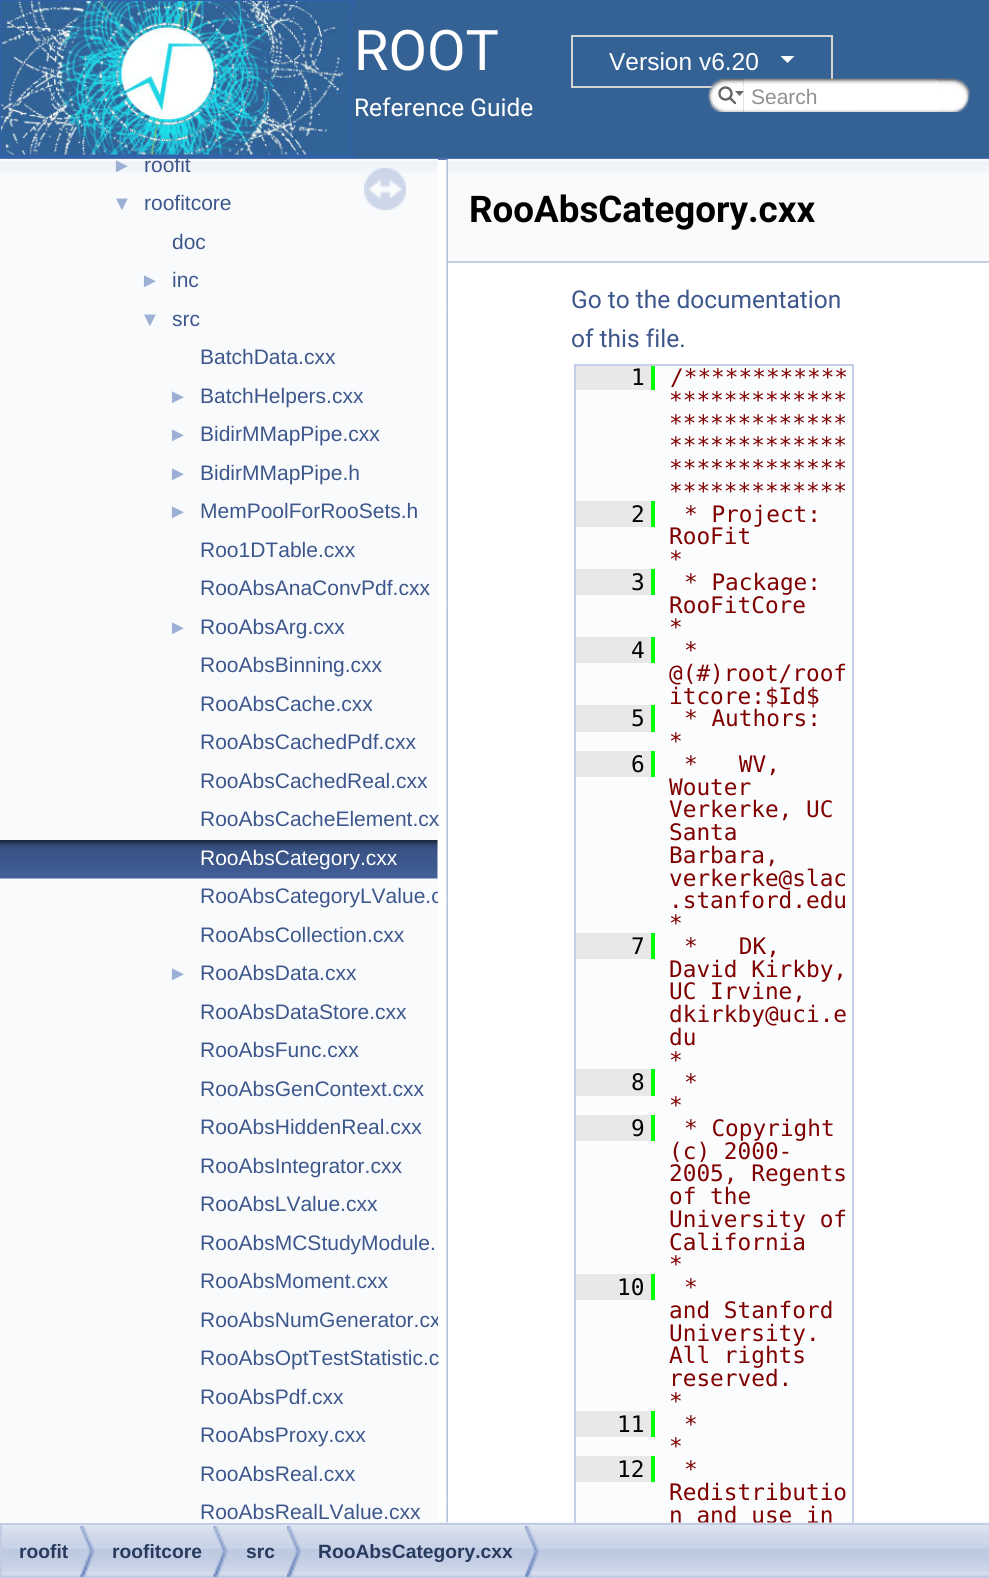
#include <cairo.h>
#include <math.h>
#include <stddef.h>


static void rgb(cairo_t *cr, int r, int g, int b)
{
	cairo_set_source_rgb(cr, r / 255.0, g / 255.0, b / 255.0);
}

static void face(cairo_t *cr, const char *family, double size, int italic, int bold)
{
	cairo_select_font_face(cr, family, italic ? CAIRO_FONT_SLANT_ITALIC : CAIRO_FONT_SLANT_NORMAL,
		bold ? CAIRO_FONT_WEIGHT_BOLD : CAIRO_FONT_WEIGHT_NORMAL);
	cairo_set_font_size(cr, size);
}

static void label(cairo_t *cr, double x, double y, const char *s)
{
	cairo_move_to(cr, x, y);
	cairo_show_text(cr, s);
}

static void rect(cairo_t *cr, double x, double y, double w, double h)
{
	cairo_rectangle(cr, x, y, w, h);
	cairo_fill(cr);
}

static void image(cairo_t *cr, const char *path, double x, double y, double w, double h)
{
	cairo_surface_t *image = cairo_image_surface_create_from_png(path);
	cairo_save(cr);
	cairo_set_source_surface(cr, image, x, y);
	cairo_rectangle(cr, x, y, w, h);
	cairo_fill(cr);
	cairo_restore(cr);
	cairo_surface_destroy(image);
}

static void draw(cairo_t *cr) {
	rgb(cr, 255, 255, 255);
	cairo_paint(cr);
	rgb(cr, 83, 115, 180);
	rect(cr, 0, 158, 989, 2);
	rgb(cr, 52, 98, 149);
	rect(cr, 0, 0, 989, 158);
	image(cr, "image0.png", 0, 0, 356, 158);
	face(cr, "Roboto", 56, 0, 0);
	rgb(cr, 255, 255, 255);
	label(cr, 354, 70, "ROOT");
	cairo_rectangle(cr, 572, 36, 260, 51);
	rgb(cr, 211, 211, 211);
	cairo_stroke(cr);
	face(cr, "Liberation Sans", 24.5, 0, 0);
	rgb(cr, 255, 255, 255);
	label(cr, 609, 70, "Version v6.20");
	cairo_new_path(cr);
	cairo_move_to(cr, 780.5, 56);
	cairo_line_to(cr, 794.5, 56);
	cairo_line_to(cr, 787.5, 63);
	cairo_close_path(cr);
	cairo_fill(cr);
	face(cr, "Roboto", 24.5, 0, 0);
	label(cr, 354, 116, "Reference Guide");
	image(cr, "image1.png", 708, 78, 36, 34);
	cairo_arc(cr, 725.5, 93.5, 6, 0, 2 * M_PI);
	rgb(cr, 101, 101, 101);
	cairo_set_line_width(cr, 2.4);
	cairo_stroke(cr);
	cairo_new_path(cr);
	cairo_move_to(cr, 735, 91);
	cairo_line_to(cr, 739.5, 96);
	cairo_line_to(cr, 744, 91);
	cairo_close_path(cr);
	cairo_fill(cr);
	cairo_new_path(cr);
	cairo_move_to(cr, 730, 98);
	cairo_line_to(cr, 735, 103);
	cairo_set_line_cap(cr, CAIRO_LINE_CAP_ROUND);
	cairo_stroke(cr);
	image(cr, "image2.png", 743, 78, 206, 34);
	face(cr, "Liberation Sans", 21, 0, 0);
	rgb(cr, 144, 144, 144);
	label(cr, 751, 104, "Search");
	image(cr, "image3.png", 938, 78, 32, 34);
	rgb(cr, 251, 252, 253);
	rect(cr, 576, 366, 276, 1157);
	cairo_rectangle(cr, 575, 365, 278, 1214);
	rgb(cr, 196, 207, 229);
	cairo_set_line_width(cr, 2);
	cairo_set_line_cap(cr, CAIRO_LINE_CAP_BUTT);
	cairo_stroke(cr);
	face(cr, "DejaVu Sans Mono", 22.75, 0, 0);
	rgb(cr, 128, 0, 0);
	label(cr, 669, 1523, "n and use in");
	image(cr, "image9.png", 2, 1522, 987, 55);
	rgb(cr, 249, 250, 252);
	rect(cr, 0, 159, 438, 1364);
	image(cr, "image4.png", 0, 161, 438, 12);
	face(cr, "Liberation Sans", 20, 0, 0);
	rgb(cr, 156, 175, 212);
	label(cr, 112, 172, "►");
	cairo_save(cr);
	cairo_rectangle(cr, 0, 159, 438, 1364);
	cairo_clip(cr);
	face(cr, "Liberation Sans", 21, 0, 0);
	rgb(cr, 61, 87, 140);
	label(cr, 144, 172, "roofit");
	cairo_restore(cr);
	label(cr, 112, 210, "▼");
	face(cr, "Liberation Sans", 21, 0, 0);
	rgb(cr, 61, 87, 140);
	label(cr, 144, 210, "roofitcore");
	label(cr, 172, 249, "doc");
	face(cr, "Liberation Sans", 20, 0, 0);
	rgb(cr, 156, 175, 212);
	label(cr, 140, 287, "►");
	face(cr, "Liberation Sans", 21, 0, 0);
	rgb(cr, 61, 87, 140);
	label(cr, 172, 287, "inc");
	face(cr, "Liberation Sans", 20, 0, 0);
	rgb(cr, 156, 175, 212);
	label(cr, 140, 326, "▼");
	face(cr, "Liberation Sans", 21, 0, 0);
	rgb(cr, 61, 87, 140);
	label(cr, 172, 326, "src");
	label(cr, 200, 364, "BatchData.cxx");
	face(cr, "Liberation Sans", 20, 0, 0);
	rgb(cr, 156, 175, 212);
	label(cr, 168, 403, "►");
	face(cr, "Liberation Sans", 21, 0, 0);
	rgb(cr, 61, 87, 140);
	label(cr, 200, 403, "BatchHelpers.cxx");
	face(cr, "Liberation Sans", 20, 0, 0);
	rgb(cr, 156, 175, 212);
	label(cr, 168, 441, "►");
	face(cr, "Liberation Sans", 21, 0, 0);
	rgb(cr, 61, 87, 140);
	label(cr, 200, 441, "BidirMMapPipe.cxx");
	face(cr, "Liberation Sans", 20, 0, 0);
	rgb(cr, 156, 175, 212);
	label(cr, 168, 480, "►");
	face(cr, "Liberation Sans", 21, 0, 0);
	rgb(cr, 61, 87, 140);
	label(cr, 200, 480, "BidirMMapPipe.h");
	face(cr, "Liberation Sans", 20, 0, 0);
	rgb(cr, 156, 175, 212);
	label(cr, 168, 518, "►");
	face(cr, "Liberation Sans", 21, 0, 0);
	rgb(cr, 61, 87, 140);
	label(cr, 200, 518, "MemPoolForRooSets.h");
	label(cr, 200, 557, "Roo1DTable.cxx");
	label(cr, 200, 595, "RooAbsAnaConvPdf.cxx");
	face(cr, "Liberation Sans", 20, 0, 0);
	rgb(cr, 156, 175, 212);
	label(cr, 168, 634, "►");
	face(cr, "Liberation Sans", 21, 0, 0);
	rgb(cr, 61, 87, 140);
	label(cr, 200, 634, "RooAbsArg.cxx");
	label(cr, 200, 672, "RooAbsBinning.cxx");
	label(cr, 200, 711, "RooAbsCache.cxx");
	label(cr, 200, 749, "RooAbsCachedPdf.cxx");
	label(cr, 200, 788, "RooAbsCachedReal.cxx");
	label(cr, 200, 826, "RooAbsCacheElement.cx");
	image(cr, "image5.png", 0, 840, 438, 39);
	rgb(cr, 255, 255, 255);
	label(cr, 200, 865, "RooAbsCategory.cxx");
	cairo_save(cr);
	cairo_rectangle(cr, 0, 159, 438, 1364);
	cairo_clip(cr);
	rgb(cr, 61, 87, 140);
	label(cr, 200, 903, "RooAbsCategoryLValue.c");
	cairo_restore(cr);
	rgb(cr, 61, 87, 140);
	label(cr, 200, 942, "RooAbsCollection.cxx");
	face(cr, "Liberation Sans", 20, 0, 0);
	rgb(cr, 156, 175, 212);
	label(cr, 168, 980, "►");
	face(cr, "Liberation Sans", 21, 0, 0);
	rgb(cr, 61, 87, 140);
	label(cr, 200, 980, "RooAbsData.cxx");
	label(cr, 200, 1019, "RooAbsDataStore.cxx");
	label(cr, 200, 1057, "RooAbsFunc.cxx");
	label(cr, 200, 1096, "RooAbsGenContext.cxx");
	label(cr, 200, 1134, "RooAbsHiddenReal.cxx");
	label(cr, 200, 1173, "RooAbsIntegrator.cxx");
	label(cr, 200, 1211, "RooAbsLValue.cxx");
	label(cr, 200, 1250, "RooAbsMCStudyModule.");
	label(cr, 200, 1288, "RooAbsMoment.cxx");
	cairo_save(cr);
	cairo_rectangle(cr, 0, 159, 438, 1364);
	cairo_clip(cr);
	label(cr, 200, 1327, "RooAbsNumGenerator.cx");
	cairo_restore(cr);
	label(cr, 200, 1365, "RooAbsOptTestStatistic.c");
	label(cr, 200, 1404, "RooAbsPdf.cxx");
	label(cr, 200, 1442, "RooAbsProxy.cxx");
	label(cr, 200, 1481, "RooAbsReal.cxx");
	label(cr, 200, 1519, "RooAbsRealLValue.cxx");
	image(cr, "image6.png", 364, 168, 42, 42);
	image(cr, "image7.png", 446, 159, 2, 1364);
	rgb(cr, 249, 250, 252);
	rect(cr, 448, 159, 541, 102);
	image(cr, "image8.png", 448, 161, 541, 12);
	rgb(cr, 196, 207, 229);
	rect(cr, 448, 261, 541, 2);
	face(cr, "Roboto", 36.75, 0, 1);
	rgb(cr, 0, 0, 0);
	label(cr, 469, 222, "RooAbsCategory.cxx");
	face(cr, "Roboto", 24.5, 0, 0);
	rgb(cr, 61, 87, 140);
	label(cr, 571, 308, "Go to the documentation");
	label(cr, 571, 347, "of this file.");
	rgb(cr, 232, 232, 232);
	rect(cr, 576, 366, 75, 24);
	face(cr, "DejaVu Sans Mono", 22.75, 0, 0);
	rgb(cr, 0, 0, 0);
	label(cr, 631, 385, "1");
	rgb(cr, 0, 255, 0);
	rect(cr, 651, 366, 4, 24);
	rgb(cr, 128, 0, 0);
	label(cr, 670, 385, "/************");
	label(cr, 669, 408, "*************");
	label(cr, 669, 431, "*************");
	label(cr, 669, 453, "*************");
	label(cr, 669, 476, "*************");
	label(cr, 669, 499, "*************");
	rgb(cr, 232, 232, 232);
	rect(cr, 576, 501, 75, 26);
	rgb(cr, 0, 0, 0);
	label(cr, 631, 522, "2");
	rgb(cr, 0, 255, 0);
	rect(cr, 651, 501, 4, 26);
	rgb(cr, 128, 0, 0);
	label(cr, 684, 522, "* Project:");
	label(cr, 669, 544, "RooFit");
	label(cr, 669, 567, "*");
	rgb(cr, 232, 232, 232);
	rect(cr, 576, 569, 75, 26);
	rgb(cr, 0, 0, 0);
	label(cr, 631, 590, "3");
	rgb(cr, 0, 255, 0);
	rect(cr, 651, 569, 4, 26);
	rgb(cr, 128, 0, 0);
	label(cr, 684, 590, "* Package:");
	label(cr, 669, 613, "RooFitCore");
	label(cr, 669, 635, "*");
	rgb(cr, 232, 232, 232);
	rect(cr, 576, 637, 75, 26);
	rgb(cr, 0, 0, 0);
	label(cr, 631, 658, "4");
	rgb(cr, 0, 255, 0);
	rect(cr, 651, 637, 4, 26);
	rgb(cr, 128, 0, 0);
	label(cr, 684, 658, "*");
	label(cr, 669, 681, "@(#)root/roof");
	label(cr, 669, 704, "itcore:$Id$");
	rgb(cr, 232, 232, 232);
	rect(cr, 576, 705, 75, 27);
	rgb(cr, 0, 0, 0);
	label(cr, 631, 726, "5");
	rgb(cr, 0, 255, 0);
	rect(cr, 651, 705, 4, 27);
	rgb(cr, 128, 0, 0);
	label(cr, 684, 726, "* Authors:");
	label(cr, 669, 749, "*");
	rgb(cr, 232, 232, 232);
	rect(cr, 576, 751, 75, 26);
	rgb(cr, 0, 0, 0);
	label(cr, 631, 772, "6");
	rgb(cr, 0, 255, 0);
	rect(cr, 651, 751, 4, 26);
	rgb(cr, 128, 0, 0);
	label(cr, 684, 772, "*   WV,");
	label(cr, 669, 795, "Wouter");
	label(cr, 669, 817, "Verkerke, UC");
	label(cr, 669, 840, "Santa");
	label(cr, 669, 863, "Barbara,");
	label(cr, 669, 886, "verkerke@slac");
	label(cr, 669, 908, ".stanford.edu");
	label(cr, 669, 931, "*");
	rgb(cr, 232, 232, 232);
	rect(cr, 576, 933, 75, 26);
	rgb(cr, 0, 0, 0);
	label(cr, 631, 954, "7");
	rgb(cr, 0, 255, 0);
	rect(cr, 651, 933, 4, 26);
	rgb(cr, 128, 0, 0);
	label(cr, 684, 954, "*   DK,");
	label(cr, 669, 977, "David Kirkby,");
	label(cr, 669, 999, "UC Irvine,");
	label(cr, 669, 1022, "dkirkby@uci.e");
	label(cr, 669, 1045, "du");
	label(cr, 669, 1068, "*");
	rgb(cr, 232, 232, 232);
	rect(cr, 576, 1069, 75, 27);
	rgb(cr, 0, 0, 0);
	label(cr, 631, 1090, "8");
	rgb(cr, 0, 255, 0);
	rect(cr, 651, 1069, 4, 27);
	rgb(cr, 128, 0, 0);
	label(cr, 684, 1090, "*");
	label(cr, 669, 1113, "*");
	rgb(cr, 232, 232, 232);
	rect(cr, 576, 1115, 75, 26);
	rgb(cr, 0, 0, 0);
	label(cr, 631, 1136, "9");
	rgb(cr, 0, 255, 0);
	rect(cr, 651, 1115, 4, 26);
	rgb(cr, 128, 0, 0);
	label(cr, 684, 1136, "* Copyright");
	label(cr, 669, 1159, "(c) 2000-");
	label(cr, 669, 1181, "2005, Regents");
	label(cr, 669, 1204, "of the");
	label(cr, 669, 1227, "University of");
	label(cr, 669, 1250, "California");
	label(cr, 669, 1272, "*");
	rgb(cr, 232, 232, 232);
	rect(cr, 576, 1274, 75, 26);
	rgb(cr, 0, 0, 0);
	label(cr, 617, 1295, "10");
	rgb(cr, 0, 255, 0);
	rect(cr, 651, 1274, 4, 26);
	rgb(cr, 128, 0, 0);
	label(cr, 684, 1295, "*");
	label(cr, 669, 1318, "and Stanford");
	label(cr, 669, 1341, "University.");
	label(cr, 669, 1363, "All rights");
	label(cr, 669, 1386, "reserved.");
	label(cr, 669, 1409, "*");
	rgb(cr, 232, 232, 232);
	rect(cr, 576, 1411, 75, 26);
	rgb(cr, 0, 0, 0);
	label(cr, 617, 1432, "11");
	rgb(cr, 0, 255, 0);
	rect(cr, 651, 1411, 4, 26);
	rgb(cr, 128, 0, 0);
	label(cr, 684, 1432, "*");
	label(cr, 669, 1454, "*");
	rgb(cr, 232, 232, 232);
	rect(cr, 576, 1456, 75, 26);
	rgb(cr, 0, 0, 0);
	label(cr, 617, 1477, "12");
	rgb(cr, 0, 255, 0);
	rect(cr, 651, 1456, 4, 26);
	rgb(cr, 128, 0, 0);
	label(cr, 684, 1477, "*");
	label(cr, 669, 1500, "Redistributio");
	cairo_rectangle(cr, 1, 1524, 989, 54);
	rgb(cr, 194, 205, 228);
	cairo_stroke(cr);
	image(cr, "image10.png", 80, 1526, 15, 51);
	face(cr, "Liberation Sans", 19.25, 0, 1);
	rgb(cr, 40, 58, 93);
	label(cr, 19, 1558, "roofit");
	image(cr, "image10.png", 213, 1526, 15, 51);
	label(cr, 112, 1558, "roofitcore");
	image(cr, "image11.png", 287, 1526, 14, 51);
	label(cr, 246, 1558, "src");
	image(cr, "image12.png", 525, 1526, 14, 51);
	label(cr, 318, 1558, "RooAbsCategory.cxx");
}

int main(void) {
	cairo_surface_t *surface = cairo_image_surface_create(CAIRO_FORMAT_RGB24, 989, 1578);
	cairo_t *cr = cairo_create(surface);
	cairo_font_options_t *options = cairo_font_options_create();
	cairo_font_options_set_hint_metrics(options, CAIRO_HINT_METRICS_OFF);
	cairo_font_options_set_hint_style(options, CAIRO_HINT_STYLE_NONE);
	cairo_set_font_options(cr, options);
	cairo_set_miter_limit(cr, 4);
	draw(cr);
	cairo_surface_write_to_png(surface, "render.png");
	cairo_font_options_destroy(options);
	cairo_destroy(cr);
	cairo_surface_destroy(surface);
	return 0;
}
